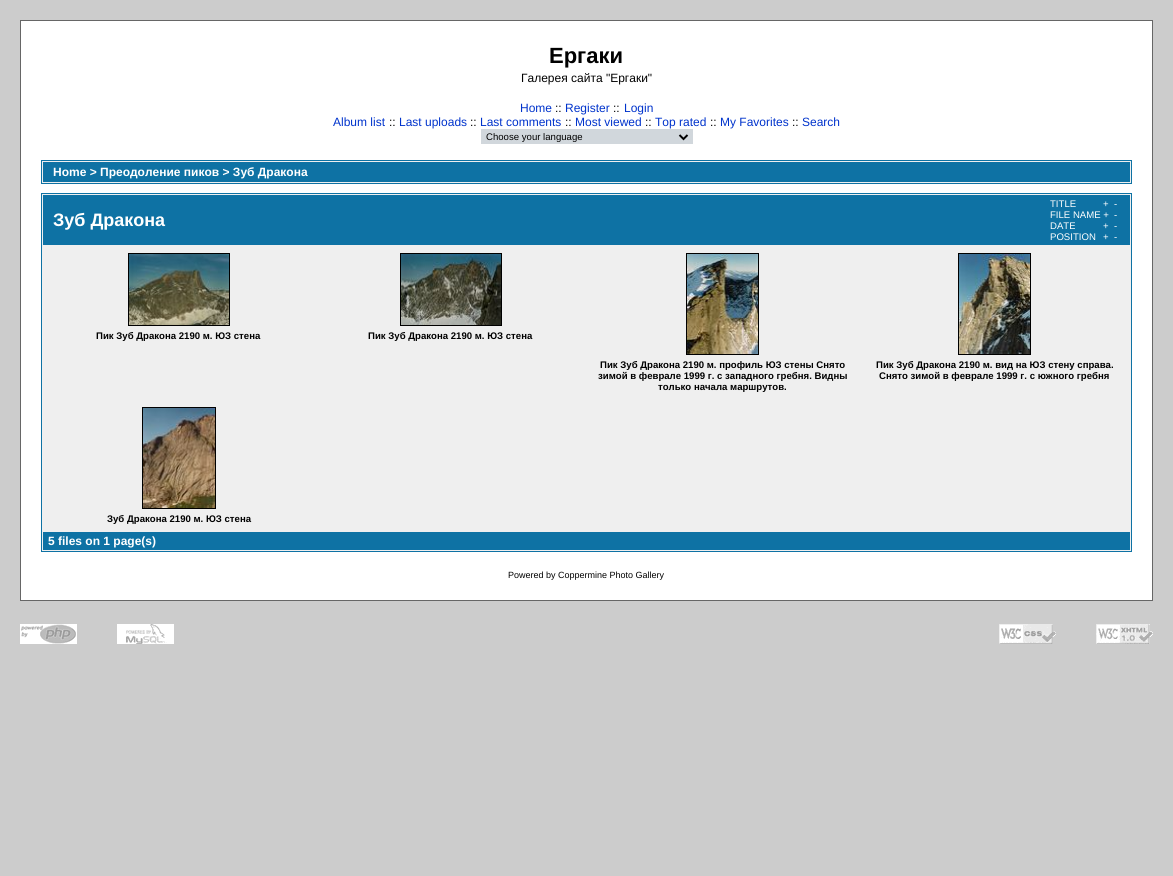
#include <cairo.h>
#include <math.h>
#include <stddef.h>


static void rgb(cairo_t *cr, int r, int g, int b)
{
	cairo_set_source_rgb(cr, r / 255.0, g / 255.0, b / 255.0);
}

static void face(cairo_t *cr, const char *family, double size, int italic, int bold)
{
	cairo_select_font_face(cr, family, italic ? CAIRO_FONT_SLANT_ITALIC : CAIRO_FONT_SLANT_NORMAL,
		bold ? CAIRO_FONT_WEIGHT_BOLD : CAIRO_FONT_WEIGHT_NORMAL);
	cairo_set_font_size(cr, size);
}

static void label(cairo_t *cr, double x, double y, const char *s)
{
	cairo_move_to(cr, x, y);
	cairo_show_text(cr, s);
}

static void rect(cairo_t *cr, double x, double y, double w, double h)
{
	cairo_rectangle(cr, x, y, w, h);
	cairo_fill(cr);
}

static void image(cairo_t *cr, const char *path, double x, double y, double w, double h)
{
	cairo_surface_t *image = cairo_image_surface_create_from_png(path);
	cairo_save(cr);
	cairo_set_source_surface(cr, image, x, y);
	cairo_rectangle(cr, x, y, w, h);
	cairo_fill(cr);
	cairo_restore(cr);
	cairo_surface_destroy(image);
}

static void draw(cairo_t *cr) {
	rgb(cr, 204, 204, 204);
	cairo_paint(cr);
	rgb(cr, 255, 255, 255);
	cairo_rectangle(cr, 20.5, 20.5, 1132, 580);
	cairo_fill_preserve(cr);
	rgb(cr, 102, 102, 102);
	cairo_set_line_width(cr, 1);
	cairo_stroke(cr);
	face(cr, "Liberation Sans", 22, 0, 1);
	rgb(cr, 0, 0, 0);
	label(cr, 549, 63, "Ергаки");
	face(cr, "Liberation Sans", 12, 0, 0);
	label(cr, 521, 82, "Галерея сайта \"Ергаки\"");
	rgb(cr, 0, 51, 204);
	label(cr, 520, 112, "Home");
	rgb(cr, 0, 0, 0);
	label(cr, 555, 112, "::");
	rgb(cr, 0, 51, 204);
	label(cr, 565, 112, "Register");
	rgb(cr, 0, 0, 0);
	label(cr, 613, 112, "::");
	rgb(cr, 0, 51, 204);
	label(cr, 624, 112, "Login");
	label(cr, 333, 126, "Album list");
	rgb(cr, 0, 0, 0);
	label(cr, 389, 126, "::");
	rgb(cr, 0, 51, 204);
	label(cr, 399, 126, "Last uploads");
	rgb(cr, 0, 0, 0);
	label(cr, 470, 126, "::");
	rgb(cr, 0, 51, 204);
	label(cr, 480, 126, "Last comments");
	rgb(cr, 0, 0, 0);
	label(cr, 565, 126, "::");
	rgb(cr, 0, 51, 204);
	label(cr, 575, 126, "Most viewed");
	rgb(cr, 0, 0, 0);
	label(cr, 645, 126, "::");
	rgb(cr, 0, 51, 204);
	label(cr, 655, 126, "Top rated");
	rgb(cr, 0, 0, 0);
	label(cr, 710, 126, "::");
	rgb(cr, 0, 51, 204);
	label(cr, 720, 126, "My Favorites");
	rgb(cr, 0, 0, 0);
	label(cr, 792, 126, "::");
	rgb(cr, 0, 51, 204);
	label(cr, 802, 126, "Search");
	rgb(cr, 209, 215, 220);
	rect(cr, 481, 129, 212, 15);
	cairo_new_path(cr);
	cairo_move_to(cr, 679.5, 135);
	cairo_line_to(cr, 683.5, 139);
	cairo_line_to(cr, 687.5, 135);
	rgb(cr, 0, 0, 0);
	cairo_set_line_width(cr, 2);
	cairo_stroke(cr);
	face(cr, "Liberation Sans", 9.6, 0, 0);
	label(cr, 486, 140, "Choose your language");
	rgb(cr, 239, 239, 239);
	cairo_rectangle(cr, 41.5, 160.5, 1090, 23);
	cairo_fill_preserve(cr);
	rgb(cr, 14, 114, 164);
	cairo_set_line_width(cr, 1);
	cairo_stroke(cr);
	rect(cr, 43, 162, 1087, 20);
	face(cr, "Liberation Sans", 12, 0, 1);
	rgb(cr, 255, 255, 255);
	label(cr, 53, 176, "Home > Преодоление пиков > Зуб Дракона");
	rgb(cr, 239, 239, 239);
	cairo_rectangle(cr, 41.5, 193.5, 1090, 358);
	cairo_fill_preserve(cr);
	rgb(cr, 14, 114, 164);
	cairo_stroke(cr);
	rect(cr, 43, 195, 1087, 50);
	face(cr, "Liberation Sans", 18, 0, 1);
	rgb(cr, 255, 255, 255);
	label(cr, 53, 226, "Зуб Дракона");
	face(cr, "Liberation Sans", 9.6, 0, 0);
	label(cr, 1050, 207, "TITLE");
	label(cr, 1103, 207, "+");
	label(cr, 1114, 207, "-");
	label(cr, 1050, 218, "FILE NAME +");
	label(cr, 1114, 218, "-");
	label(cr, 1050, 229, "DATE");
	label(cr, 1103, 229, "+");
	label(cr, 1114, 229, "-");
	label(cr, 1050, 240, "POSITION");
	label(cr, 1103, 240, "+");
	label(cr, 1114, 240, "-");
	cairo_rectangle(cr, 128.5, 253.5, 101, 72);
	rgb(cr, 0, 0, 0);
	cairo_stroke(cr);
	image(cr, "image0.png", 129, 254, 100, 71);
	face(cr, "Liberation Sans", 9.6, 0, 1);
	label(cr, 96, 339, "Пик Зуб Дракона 2190 м. ЮЗ стена");
	cairo_rectangle(cr, 400.5, 253.5, 101, 72);
	cairo_stroke(cr);
	image(cr, "image1.png", 401, 254, 100, 71);
	label(cr, 368, 339, "Пик Зуб Дракона 2190 м. ЮЗ стена");
	cairo_rectangle(cr, 686.5, 253.5, 72, 101);
	cairo_stroke(cr);
	image(cr, "image2.png", 687, 254, 71, 100);
	label(cr, 600, 368, "Пик Зуб Дракона 2190 м. профиль ЮЗ стены Снято");
	label(cr, 598, 379, "зимой в феврале 1999 г. с западного гребня. Видны");
	label(cr, 658, 390, "только начала маршрутов.");
	cairo_rectangle(cr, 958.5, 253.5, 72, 101);
	cairo_stroke(cr);
	image(cr, "image3.png", 959, 254, 71, 100);
	label(cr, 876, 368, "Пик Зуб Дракона 2190 м. вид на ЮЗ стену справа.");
	label(cr, 879, 379, "Снято зимой в феврале 1999 г. с южного гребня");
	cairo_rectangle(cr, 142.5, 407.5, 73, 101);
	cairo_stroke(cr);
	image(cr, "image4.png", 143, 408, 72, 100);
	label(cr, 107, 522, "Зуб Дракона 2190 м. ЮЗ стена");
	rgb(cr, 14, 114, 164);
	rect(cr, 43, 532, 1087, 18);
	face(cr, "Liberation Sans", 12, 0, 1);
	rgb(cr, 255, 255, 255);
	label(cr, 48, 545, "5 files on 1 page(s)");
	face(cr, "Liberation Sans", 9, 0, 0);
	rgb(cr, 0, 0, 0);
	label(cr, 508, 578, "Powered by Coppermine Photo Gallery");
	image(cr, "image5.png", 20, 624, 57, 20);
	image(cr, "image6.png", 117, 624, 57, 20);
	image(cr, "image7.png", 999, 624, 57, 20);
	image(cr, "image8.png", 1096, 624, 57, 20);
}

int main(void) {
	cairo_surface_t *surface = cairo_image_surface_create(CAIRO_FORMAT_RGB24, 1173, 876);
	cairo_t *cr = cairo_create(surface);
	cairo_font_options_t *options = cairo_font_options_create();
	cairo_font_options_set_hint_metrics(options, CAIRO_HINT_METRICS_OFF);
	cairo_font_options_set_hint_style(options, CAIRO_HINT_STYLE_NONE);
	cairo_set_font_options(cr, options);
	cairo_set_miter_limit(cr, 4);
	draw(cr);
	cairo_surface_write_to_png(surface, "render.png");
	cairo_font_options_destroy(options);
	cairo_destroy(cr);
	cairo_surface_destroy(surface);
	return 0;
}
